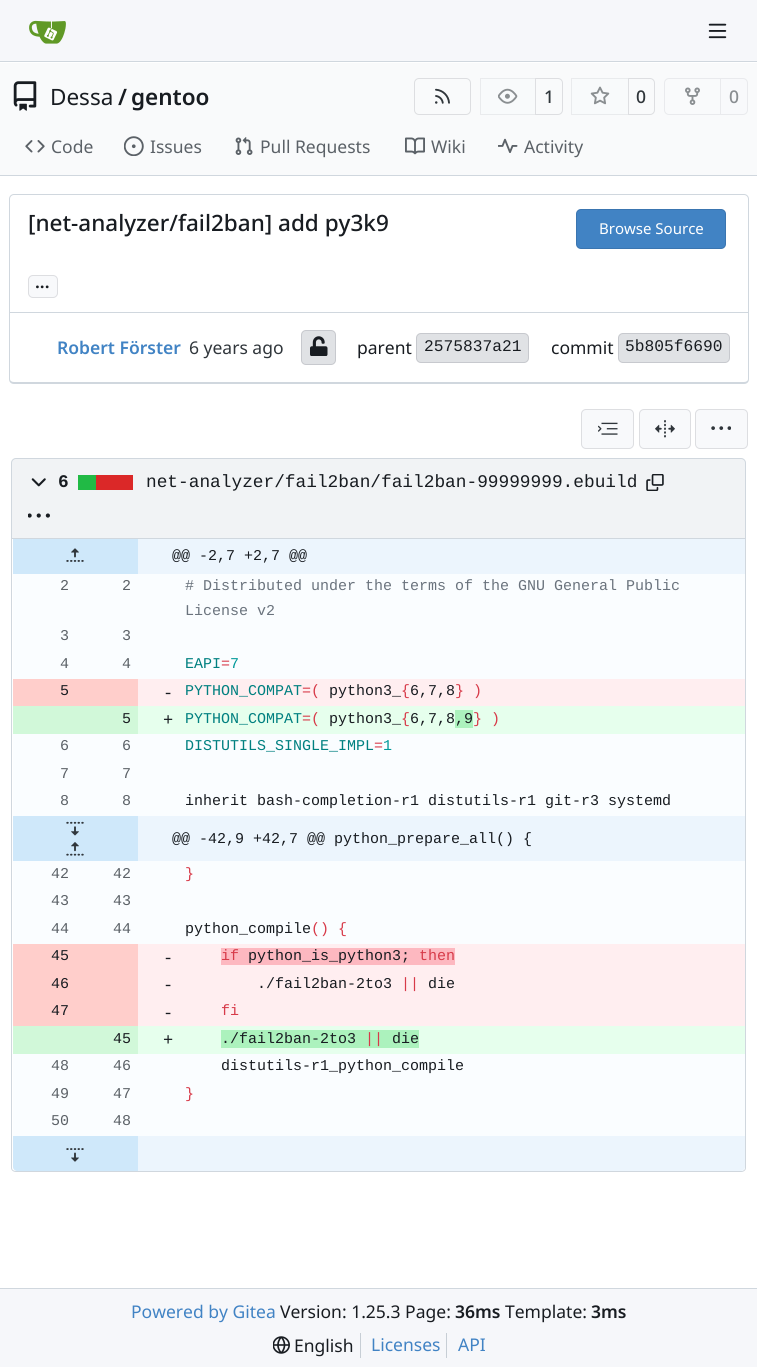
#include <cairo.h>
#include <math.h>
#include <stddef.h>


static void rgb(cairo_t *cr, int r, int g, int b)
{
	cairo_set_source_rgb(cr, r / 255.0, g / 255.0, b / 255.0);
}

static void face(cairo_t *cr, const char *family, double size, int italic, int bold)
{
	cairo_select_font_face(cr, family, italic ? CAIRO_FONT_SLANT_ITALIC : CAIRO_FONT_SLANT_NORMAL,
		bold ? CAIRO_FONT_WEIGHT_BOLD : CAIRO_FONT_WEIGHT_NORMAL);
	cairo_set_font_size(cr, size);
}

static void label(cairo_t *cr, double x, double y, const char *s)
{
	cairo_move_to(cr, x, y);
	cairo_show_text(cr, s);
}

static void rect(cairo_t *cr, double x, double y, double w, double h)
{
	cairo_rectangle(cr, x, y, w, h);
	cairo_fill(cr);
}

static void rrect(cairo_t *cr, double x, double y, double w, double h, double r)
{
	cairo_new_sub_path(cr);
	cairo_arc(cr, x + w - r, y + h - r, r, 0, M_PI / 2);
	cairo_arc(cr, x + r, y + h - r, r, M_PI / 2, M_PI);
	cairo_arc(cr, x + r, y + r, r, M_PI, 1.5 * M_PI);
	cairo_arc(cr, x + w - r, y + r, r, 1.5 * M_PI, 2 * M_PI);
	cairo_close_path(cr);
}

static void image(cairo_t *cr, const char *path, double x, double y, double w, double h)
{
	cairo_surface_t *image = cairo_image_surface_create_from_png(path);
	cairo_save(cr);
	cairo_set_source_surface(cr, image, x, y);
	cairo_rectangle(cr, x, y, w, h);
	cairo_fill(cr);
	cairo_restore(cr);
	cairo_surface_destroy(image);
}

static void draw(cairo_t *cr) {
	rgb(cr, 255, 255, 255);
	cairo_paint(cr);
	rgb(cr, 246, 247, 250);
	rect(cr, 0, 0, 757, 61);
	rgb(cr, 208, 215, 222);
	rect(cr, 0, 61, 757, 1);
	image(cr, "image0.png", 29, 20, 37, 24);
	image(cr, "image1.png", 708, 23, 19, 16);
	rgb(cr, 249, 250, 251);
	rect(cr, 0, 63, 757, 112);
	image(cr, "image2.png", 13, 81, 24, 30);
	face(cr, "Noto Sans", 22.5, 0, 0);
	rgb(cr, 24, 28, 33);
	label(cr, 50, 105, "Dessa");
	face(cr, "Noto Sans SemiBold", 22.5, 0, 0);
	label(cr, 118, 105, "/");
	label(cr, 131, 105, "gentoo");
	rrect(cr, 414.5, 78.5, 56, 36, 4.5);
	rgb(cr, 221, 222, 225);
	cairo_set_line_width(cr, 1);
	cairo_stroke(cr);
	image(cr, "image3.png", 435, 88, 15, 16);
	cairo_new_path(cr);
	cairo_move_to(cr, 535.5, 78.5);
	cairo_line_to(cr, 558, 78.5);
	cairo_curve_to(cr, 560.5, 78.5, 562.5, 80.5, 562.5, 83);
	cairo_line_to(cr, 562.5, 110);
	cairo_curve_to(cr, 562.5, 112.5, 560.5, 114.5, 558, 114.5);
	cairo_line_to(cr, 535.5, 114.5);
	cairo_close_path(cr);
	cairo_stroke(cr);
	cairo_set_source_rgba(cr, 0.973, 0.976, 0.984, 0.55);
	cairo_new_path(cr);
	cairo_move_to(cr, 485, 78);
	cairo_line_to(cr, 536, 78);
	cairo_line_to(cr, 536, 115);
	cairo_line_to(cr, 485, 115);
	cairo_curve_to(cr, 482, 115, 480, 113, 480, 110);
	cairo_line_to(cr, 480, 83);
	cairo_curve_to(cr, 480, 80, 482, 78, 485, 78);
	cairo_close_path(cr);
	cairo_fill(cr);
	cairo_rectangle(cr, 480.5, 78.5, 55, 36);
	cairo_set_source_rgba(cr, 0, 0, 0.09, 0.06);
	cairo_stroke(cr);
	image(cr, "image4.png", 498, 88, 20, 16);
	face(cr, "Noto Sans Medium", 17.5, 0, 0);
	rgb(cr, 48, 54, 59);
	label(cr, 544, 103, "1");
	cairo_new_path(cr);
	cairo_move_to(cr, 628.5, 78.5);
	cairo_line_to(cr, 650, 78.5);
	cairo_curve_to(cr, 652.5, 78.5, 654.5, 80.5, 654.5, 83);
	cairo_line_to(cr, 654.5, 110);
	cairo_curve_to(cr, 654.5, 112.5, 652.5, 114.5, 650, 114.5);
	cairo_line_to(cr, 628.5, 114.5);
	cairo_close_path(cr);
	rgb(cr, 221, 222, 225);
	cairo_stroke(cr);
	cairo_set_source_rgba(cr, 0.973, 0.976, 0.984, 0.55);
	cairo_new_path(cr);
	cairo_move_to(cr, 576, 78);
	cairo_line_to(cr, 629, 78);
	cairo_line_to(cr, 629, 115);
	cairo_line_to(cr, 576, 115);
	cairo_curve_to(cr, 573, 115, 571, 113, 571, 110);
	cairo_line_to(cr, 571, 83);
	cairo_curve_to(cr, 571, 80, 573, 78, 576, 78);
	cairo_close_path(cr);
	cairo_fill(cr);
	cairo_rectangle(cr, 571.5, 78.5, 57, 36);
	cairo_set_source_rgba(cr, 0, 0, 0.09, 0.06);
	cairo_stroke(cr);
	image(cr, "image5.png", 590, 86, 20, 19);
	rgb(cr, 48, 54, 59);
	label(cr, 636, 103, "0");
	cairo_new_path(cr);
	cairo_move_to(cr, 669, 78.5);
	cairo_line_to(cr, 720.5, 78.5);
	cairo_line_to(cr, 720.5, 114.5);
	cairo_line_to(cr, 669, 114.5);
	cairo_curve_to(cr, 666.5, 114.5, 664.5, 112.5, 664.5, 110);
	cairo_line_to(cr, 664.5, 83);
	cairo_curve_to(cr, 664.5, 80.5, 666.5, 78.5, 669, 78.5);
	cairo_close_path(cr);
	rgb(cr, 233, 234, 237);
	cairo_stroke(cr);
	image(cr, "image6.png", 685, 87, 15, 18);
	rgb(cr, 248, 249, 251);
	cairo_new_path(cr);
	cairo_move_to(cr, 720.5, 78.5);
	cairo_line_to(cr, 743, 78.5);
	cairo_curve_to(cr, 745.5, 78.5, 747.5, 80.5, 747.5, 83);
	cairo_line_to(cr, 747.5, 110);
	cairo_curve_to(cr, 747.5, 112.5, 745.5, 114.5, 743, 114.5);
	cairo_line_to(cr, 720.5, 114.5);
	cairo_close_path(cr);
	cairo_fill_preserve(cr);
	rgb(cr, 233, 234, 237);
	cairo_stroke(cr);
	rgb(cr, 138, 142, 145);
	label(cr, 729, 103, "0");
	image(cr, "image7.png", 25, 140, 20, 13);
	face(cr, "Noto Sans", 17.5, 0, 0);
	rgb(cr, 91, 97, 103);
	label(cr, 51, 153, "Code");
	image(cr, "image8.png", 124, 136, 20, 20);
	label(cr, 150, 153, "Issues");
	image(cr, "image9.png", 235, 137, 18, 18);
	label(cr, 260, 153, "Pull Requests");
	image(cr, "image10.png", 405, 137, 20, 18);
	label(cr, 431, 153, "Wiki");
	image(cr, "image11.png", 498, 138, 20, 15);
	label(cr, 524, 153, "Activity");
	rgb(cr, 208, 215, 222);
	rect(cr, 0, 175, 757, 1);
	cairo_new_path(cr);
	cairo_move_to(cr, 14, 194.5);
	cairo_line_to(cr, 744, 194.5);
	cairo_curve_to(cr, 746.5, 194.5, 748.5, 196.5, 748.5, 199);
	cairo_line_to(cr, 748.5, 312.5);
	cairo_line_to(cr, 9.5, 312.5);
	cairo_line_to(cr, 9.5, 199);
	cairo_curve_to(cr, 9.5, 196.5, 11.5, 194.5, 14, 194.5);
	cairo_close_path(cr);
	cairo_stroke(cr);
	face(cr, "Noto Sans Medium", 22.5, 0, 0);
	rgb(cr, 24, 28, 33);
	label(cr, 28, 231, "[net-analyzer/fail2ban] add py3k9");
	rgb(cr, 65, 131, 196);
	rrect(cr, 576, 209, 150, 40, 5);
	cairo_fill(cr);
	rrect(cr, 576.5, 209.5, 149, 39, 4.5);
	cairo_set_source_rgba(cr, 0, 0, 0.09, 0.11);
	cairo_stroke(cr);
	face(cr, "Noto Sans", 15, 0, 0);
	rgb(cr, 255, 255, 255);
	label(cr, 599, 234, "Browse Source");
	rgb(cr, 248, 249, 251);
	rrect(cr, 28, 275, 30, 23, 5);
	cairo_fill(cr);
	rrect(cr, 28.5, 275.5, 29, 22, 4.5);
	cairo_set_source_rgba(cr, 0, 0, 0.09, 0.11);
	cairo_stroke(cr);
	face(cr, "Noto Sans SemiBold", 17.5, 0, 0);
	rgb(cr, 24, 28, 33);
	label(cr, 35, 288, "...");
	rgb(cr, 208, 215, 222);
	cairo_set_fill_rule(cr, CAIRO_FILL_RULE_EVEN_ODD);
	cairo_new_path(cr);
	cairo_move_to(cr, 9, 312);
	cairo_line_to(cr, 749, 312);
	cairo_line_to(cr, 749, 379);
	cairo_curve_to(cr, 749, 382, 747, 384, 744, 384);
	cairo_line_to(cr, 14, 384);
	cairo_curve_to(cr, 11, 384, 9, 382, 9, 379);
	cairo_close_path(cr);
	cairo_move_to(cr, 10, 312);
	cairo_line_to(cr, 748, 312);
	cairo_line_to(cr, 748, 379);
	cairo_curve_to(cr, 748, 381, 746, 382, 744, 382);
	cairo_line_to(cr, 14, 382);
	cairo_curve_to(cr, 12, 382, 10, 381, 10, 379);
	cairo_close_path(cr);
	cairo_fill(cr);
	rgb(cr, 65, 131, 196);
	label(cr, 57, 354, "Robert Förster");
	face(cr, "Noto Sans", 17.5, 0, 0);
	rgb(cr, 48, 54, 59);
	label(cr, 189, 354, "6 years ago");
	rgb(cr, 224, 226, 229);
	rrect(cr, 301, 330, 35, 35, 5);
	cairo_fill(cr);
	rrect(cr, 301.5, 330.5, 34, 34, 4.5);
	cairo_set_source_rgba(cr, 0, 0, 0.09, 0.11);
	cairo_stroke(cr);
	image(cr, "image12.png", 310, 336, 18, 20);
	rgb(cr, 24, 28, 33);
	label(cr, 357, 354, "parent");
	rgb(cr, 224, 226, 229);
	rrect(cr, 416, 333, 113, 30, 5);
	cairo_fill(cr);
	rrect(cr, 416.5, 333.5, 112, 29, 4.5);
	cairo_set_source_rgba(cr, 0, 0, 0.09, 0.11);
	cairo_stroke(cr);
	face(cr, "Liberation Mono", 16.25, 0, 0);
	rgb(cr, 24, 28, 33);
	label(cr, 424, 351, "2575837a21");
	face(cr, "Noto Sans", 17.5, 0, 0);
	label(cr, 551, 354, "commit");
	rgb(cr, 224, 226, 229);
	rrect(cr, 618, 333, 112, 30, 5);
	cairo_fill(cr);
	rrect(cr, 618.5, 333.5, 111, 29, 4.5);
	cairo_set_source_rgba(cr, 0, 0, 0.09, 0.11);
	cairo_stroke(cr);
	face(cr, "Liberation Mono", 16.25, 0, 0);
	rgb(cr, 24, 28, 33);
	label(cr, 625, 351, "5b805f6690");
	rgb(cr, 248, 249, 251);
	rrect(cr, 581, 409, 53, 40, 5);
	cairo_fill(cr);
	rrect(cr, 581.5, 409.5, 52, 39, 4.5);
	cairo_set_source_rgba(cr, 0, 0, 0.09, 0.11);
	cairo_stroke(cr);
	image(cr, "image13.png", 598, 422, 20, 13);
	rgb(cr, 248, 249, 251);
	rrect(cr, 639, 409, 52, 40, 5);
	cairo_fill(cr);
	rrect(cr, 639.5, 409.5, 51, 39, 4.5);
	cairo_set_source_rgba(cr, 0, 0, 0.09, 0.11);
	cairo_stroke(cr);
	image(cr, "image14.png", 655, 420, 20, 18);
	rgb(cr, 248, 249, 251);
	rrect(cr, 695, 409, 53, 40, 5);
	cairo_fill(cr);
	rrect(cr, 695.5, 409.5, 52, 39, 4.5);
	cairo_set_source_rgba(cr, 0, 0, 0.09, 0.11);
	cairo_stroke(cr);
	image(cr, "image15.png", 711, 426, 20, 4);
	rgb(cr, 241, 243, 245);
	cairo_new_path(cr);
	cairo_move_to(cr, 16, 458.5);
	cairo_line_to(cr, 741, 458.5);
	cairo_curve_to(cr, 743.5, 458.5, 745.5, 460.5, 745.5, 463);
	cairo_line_to(cr, 745.5, 538.5);
	cairo_line_to(cr, 11.5, 538.5);
	cairo_line_to(cr, 11.5, 463);
	cairo_curve_to(cr, 11.5, 460.5, 13.5, 458.5, 16, 458.5);
	cairo_close_path(cr);
	cairo_fill_preserve(cr);
	rgb(cr, 208, 215, 222);
	cairo_stroke(cr);
	image(cr, "image16.png", 31, 478, 15, 9);
	face(cr, "Liberation Mono", 17.8, 0, 1);
	rgb(cr, 24, 28, 33);
	label(cr, 58, 487, "6");
	rgb(cr, 219, 40, 40);
	rect(cr, 96, 475, 37, 15);
	rgb(cr, 33, 186, 69);
	rect(cr, 78, 475, 18, 15);
	face(cr, "Liberation Mono", 17.8, 0, 0);
	rgb(cr, 24, 28, 33);
	label(cr, 146, 487, "net-analyzer/fail2ban/fail2ban-99999999.ebuild");
	image(cr, "image17.png", 646, 474, 18, 17);
	image(cr, "image18.png", 28, 513, 22, 5);
	rgb(cr, 208, 215, 222);
	cairo_new_path(cr);
	cairo_move_to(cr, 11, 539);
	cairo_line_to(cr, 746, 539);
	cairo_line_to(cr, 746, 1168);
	cairo_curve_to(cr, 746, 1170, 744, 1172, 741, 1172);
	cairo_line_to(cr, 16, 1172);
	cairo_curve_to(cr, 13, 1172, 11, 1170, 11, 1168);
	cairo_close_path(cr);
	cairo_move_to(cr, 12, 539);
	cairo_line_to(cr, 745, 539);
	cairo_line_to(cr, 745, 1168);
	cairo_curve_to(cr, 745, 1170, 743, 1171, 741, 1171);
	cairo_line_to(cr, 16, 1171);
	cairo_curve_to(cr, 14, 1171, 12, 1170, 12, 1168);
	cairo_close_path(cr);
	cairo_fill(cr);
	rgb(cr, 250, 253, 255);
	rrect(cr, 13, 539, 732, 632, 5);
	cairo_fill(cr);
	rgb(cr, 236, 245, 253);
	rect(cr, 138, 539, 607, 35);
	rgb(cr, 207, 232, 250);
	rect(cr, 13, 539, 125, 35);
	image(cr, "image19.png", 66, 548, 18, 14);
	face(cr, "Liberation Mono", 15, 0, 0);
	rgb(cr, 24, 28, 33);
	label(cr, 172, 560, "@@ -2,7 +2,7 @@");
	rgb(cr, 91, 97, 103);
	label(cr, 60, 590, "2");
	label(cr, 122, 590, "2");
	rgb(cr, 106, 115, 125);
	label(cr, 185, 590, "# Distributed under the terms of the GNU General Public");
	label(cr, 185, 615, "License v2");
	rgb(cr, 91, 97, 103);
	label(cr, 60, 640, "3");
	label(cr, 122, 640, "3");
	label(cr, 60, 668, "4");
	label(cr, 122, 668, "4");
	rgb(cr, 0, 128, 128);
	label(cr, 185, 668, "EAPI");
	rgb(cr, 215, 58, 73);
	label(cr, 221, 668, "=");
	rgb(cr, 0, 153, 153);
	label(cr, 230, 668, "7");
	rgb(cr, 255, 238, 240);
	rect(cr, 138, 679, 607, 27);
	rgb(cr, 255, 206, 203);
	rect(cr, 13, 679, 125, 27);
	rgb(cr, 24, 28, 33);
	label(cr, 60, 695, "5");
	face(cr, "Liberation Mono", 17, 0, 0);
	label(cr, 163, 698, "-");
	face(cr, "Liberation Mono", 15, 0, 0);
	rgb(cr, 0, 128, 128);
	label(cr, 185, 695, "PYTHON_COMPAT");
	rgb(cr, 215, 58, 73);
	label(cr, 302, 695, "=(");
	rgb(cr, 24, 28, 33);
	label(cr, 329, 695, "python3_ 6,7,8");
	rgb(cr, 215, 58, 73);
	label(cr, 401, 695, "{");
	label(cr, 455, 695, "} )");
	rgb(cr, 230, 255, 237);
	rect(cr, 138, 706, 607, 28);
	rgb(cr, 209, 248, 217);
	rect(cr, 13, 706, 125, 28);
	rgb(cr, 0, 128, 128);
	label(cr, 185, 723, "PYTHON_COMPAT");
	rgb(cr, 215, 58, 73);
	label(cr, 302, 723, "=(");
	rgb(cr, 24, 28, 33);
	label(cr, 329, 723, "python3_ 6,7,8");
	rgb(cr, 215, 58, 73);
	label(cr, 401, 723, "{");
	rgb(cr, 172, 242, 189);
	rect(cr, 455, 710, 18, 18);
	rgb(cr, 24, 28, 33);
	label(cr, 455, 723, ",9");
	rgb(cr, 215, 58, 73);
	label(cr, 473, 723, "} )");
	rgb(cr, 24, 28, 33);
	label(cr, 122, 723, "5");
	face(cr, "Liberation Mono", 17, 0, 0);
	label(cr, 163, 725, "+");
	face(cr, "Liberation Mono", 15, 0, 0);
	rgb(cr, 91, 97, 103);
	label(cr, 60, 750, "6");
	label(cr, 122, 750, "6");
	rgb(cr, 0, 128, 128);
	label(cr, 185, 750, "DISTUTILS_SINGLE_IMPL");
	rgb(cr, 215, 58, 73);
	label(cr, 374, 750, "=");
	rgb(cr, 0, 153, 153);
	label(cr, 383, 750, "1");
	rgb(cr, 91, 97, 103);
	label(cr, 60, 778, "7");
	label(cr, 122, 778, "7");
	label(cr, 60, 805, "8");
	label(cr, 122, 805, "8");
	rgb(cr, 24, 28, 33);
	label(cr, 185, 805, "inherit bash-completion-r1 distutils-r1 git-r3 systemd");
	rgb(cr, 236, 245, 253);
	rect(cr, 138, 816, 607, 45);
	rgb(cr, 207, 232, 250);
	rect(cr, 13, 816, 125, 45);
	image(cr, "image20.png", 66, 821, 18, 15);
	image(cr, "image21.png", 66, 842, 18, 14);
	rgb(cr, 24, 28, 33);
	label(cr, 172, 843, "@@ -42,9 +42,7 @@ python_prepare_all() {");
	rgb(cr, 91, 97, 103);
	label(cr, 51, 878, "42");
	label(cr, 113, 878, "42");
	rgb(cr, 215, 58, 73);
	label(cr, 185, 878, "}");
	rgb(cr, 91, 97, 103);
	label(cr, 51, 905, "43");
	label(cr, 113, 905, "43");
	label(cr, 51, 933, "44");
	label(cr, 113, 933, "44");
	rgb(cr, 24, 28, 33);
	label(cr, 185, 933, "python_compile");
	rgb(cr, 215, 58, 73);
	label(cr, 311, 933, "() {");
	rgb(cr, 255, 238, 240);
	rect(cr, 138, 944, 607, 82);
	rgb(cr, 255, 206, 203);
	rect(cr, 13, 944, 125, 27);
	rgb(cr, 24, 28, 33);
	label(cr, 51, 960, "45");
	face(cr, "Liberation Mono", 17, 0, 0);
	label(cr, 163, 963, "-");
	rgb(cr, 253, 184, 192);
	rect(cr, 221, 948, 234, 17);
	face(cr, "Liberation Mono", 15, 0, 0);
	rgb(cr, 215, 58, 73);
	label(cr, 221, 960, "if");
	rgb(cr, 24, 28, 33);
	label(cr, 248, 960, "python_is_python3;");
	rgb(cr, 215, 58, 73);
	label(cr, 419, 960, "then");
	rgb(cr, 255, 206, 203);
	rect(cr, 13, 971, 125, 28);
	rgb(cr, 24, 28, 33);
	label(cr, 51, 988, "46");
	face(cr, "Liberation Mono", 17, 0, 0);
	label(cr, 163, 990, "-");
	face(cr, "Liberation Mono", 15, 0, 0);
	label(cr, 257, 988, "./fail2ban-2to3");
	rgb(cr, 215, 58, 73);
	label(cr, 401, 988, "||");
	rgb(cr, 24, 28, 33);
	label(cr, 428, 988, "die");
	rgb(cr, 255, 206, 203);
	rect(cr, 13, 999, 125, 27);
	rgb(cr, 24, 28, 33);
	label(cr, 51, 1015, "47");
	face(cr, "Liberation Mono", 17, 0, 0);
	label(cr, 163, 1018, "-");
	face(cr, "Liberation Mono", 15, 0, 0);
	rgb(cr, 215, 58, 73);
	label(cr, 221, 1015, "fi");
	rgb(cr, 230, 255, 237);
	rect(cr, 138, 1026, 607, 28);
	rgb(cr, 209, 248, 217);
	rect(cr, 13, 1026, 125, 28);
	rgb(cr, 172, 242, 189);
	rect(cr, 221, 1030, 198, 18);
	rgb(cr, 24, 28, 33);
	label(cr, 221, 1043, "./fail2ban-2to3");
	rgb(cr, 215, 58, 73);
	label(cr, 365, 1043, "||");
	rgb(cr, 24, 28, 33);
	label(cr, 392, 1043, "die");
	label(cr, 113, 1043, "45");
	face(cr, "Liberation Mono", 17, 0, 0);
	label(cr, 163, 1045, "+");
	face(cr, "Liberation Mono", 15, 0, 0);
	rgb(cr, 91, 97, 103);
	label(cr, 51, 1070, "48");
	label(cr, 113, 1070, "46");
	rgb(cr, 24, 28, 33);
	label(cr, 221, 1070, "distutils-r1_python_compile");
	rgb(cr, 91, 97, 103);
	label(cr, 51, 1098, "49");
	label(cr, 113, 1098, "47");
	rgb(cr, 215, 58, 73);
	label(cr, 185, 1098, "}");
	rgb(cr, 91, 97, 103);
	label(cr, 51, 1125, "50");
	label(cr, 113, 1125, "48");
	rgb(cr, 207, 232, 250);
	cairo_new_path(cr);
	cairo_move_to(cr, 13, 1136);
	cairo_line_to(cr, 138, 1136);
	cairo_line_to(cr, 138, 1171);
	cairo_line_to(cr, 17, 1171);
	cairo_curve_to(cr, 15, 1171, 13, 1169, 13, 1167);
	cairo_close_path(cr);
	cairo_fill(cr);
	image(cr, "image22.png", 66, 1148, 18, 14);
	rgb(cr, 236, 245, 253);
	rect(cr, 138, 1136, 35, 35);
	cairo_new_path(cr);
	cairo_move_to(cr, 173, 1136);
	cairo_line_to(cr, 745, 1136);
	cairo_line_to(cr, 745, 1167);
	cairo_curve_to(cr, 745, 1169, 743, 1171, 741, 1171);
	cairo_line_to(cr, 173, 1171);
	cairo_close_path(cr);
	cairo_fill(cr);
	rgb(cr, 246, 247, 250);
	rect(cr, 0, 1289, 757, 78);
	rgb(cr, 208, 215, 222);
	rect(cr, 0, 1288, 757, 1);
	face(cr, "Noto Sans", 17.5, 0, 0);
	rgb(cr, 65, 131, 196);
	label(cr, 131, 1318, "Powered by Gitea");
	rgb(cr, 24, 28, 33);
	label(cr, 280, 1318, "Version: 1.25.3 Page:");
	face(cr, "Noto Sans SemiBold", 17.5, 0, 0);
	label(cr, 455, 1318, "36ms");
	face(cr, "Noto Sans", 17.5, 0, 0);
	label(cr, 505, 1318, "Template:");
	face(cr, "Noto Sans SemiBold", 17.5, 0, 0);
	label(cr, 591, 1318, "3ms");
	image(cr, "image23.png", 273, 1336, 17, 18);
	face(cr, "Noto Sans", 17.5, 0, 0);
	label(cr, 294, 1352, "English");
	rgb(cr, 199, 206, 213);
	rect(cr, 360, 1333, 1, 25);
	rgb(cr, 65, 131, 196);
	label(cr, 371, 1351, "Licenses");
	rgb(cr, 199, 206, 213);
	rect(cr, 446, 1333, 1, 25);
	rgb(cr, 65, 131, 196);
	label(cr, 458, 1351, "API");
}

int main(void) {
	cairo_surface_t *surface = cairo_image_surface_create(CAIRO_FORMAT_RGB24, 757, 1367);
	cairo_t *cr = cairo_create(surface);
	cairo_font_options_t *options = cairo_font_options_create();
	cairo_font_options_set_hint_metrics(options, CAIRO_HINT_METRICS_OFF);
	cairo_font_options_set_hint_style(options, CAIRO_HINT_STYLE_NONE);
	cairo_set_font_options(cr, options);
	cairo_set_miter_limit(cr, 4);
	draw(cr);
	cairo_surface_write_to_png(surface, "render.png");
	cairo_font_options_destroy(options);
	cairo_destroy(cr);
	cairo_surface_destroy(surface);
	return 0;
}
